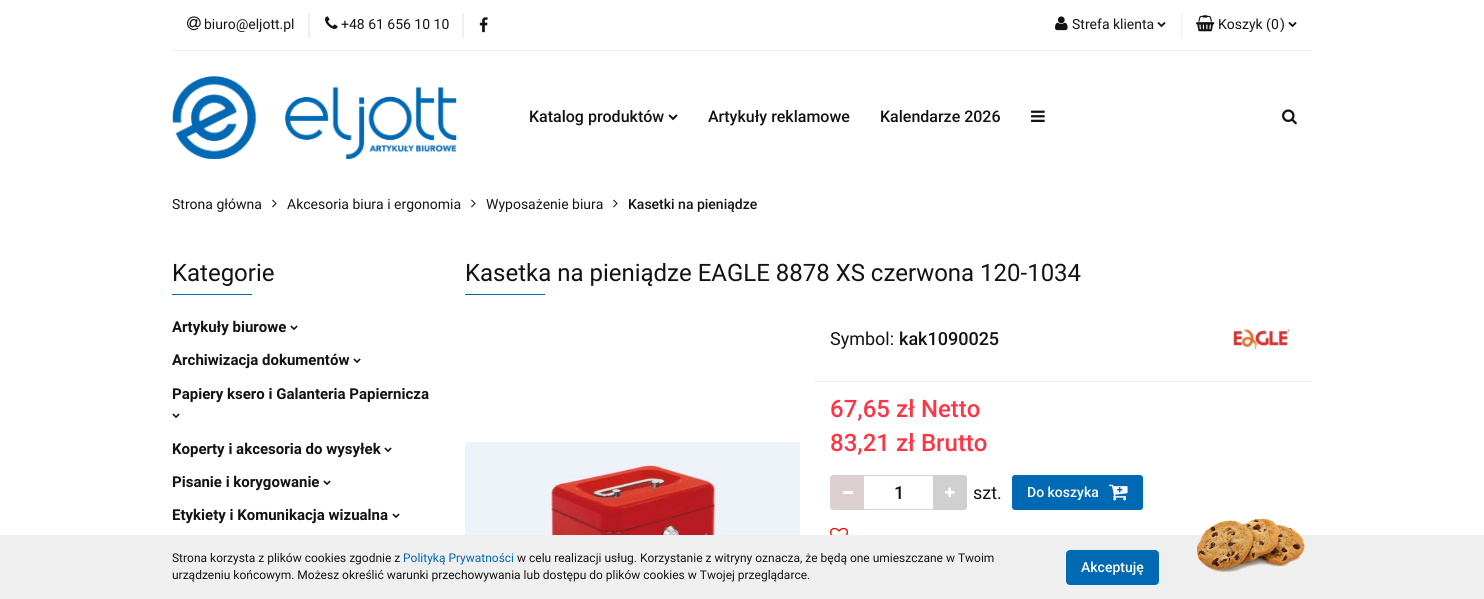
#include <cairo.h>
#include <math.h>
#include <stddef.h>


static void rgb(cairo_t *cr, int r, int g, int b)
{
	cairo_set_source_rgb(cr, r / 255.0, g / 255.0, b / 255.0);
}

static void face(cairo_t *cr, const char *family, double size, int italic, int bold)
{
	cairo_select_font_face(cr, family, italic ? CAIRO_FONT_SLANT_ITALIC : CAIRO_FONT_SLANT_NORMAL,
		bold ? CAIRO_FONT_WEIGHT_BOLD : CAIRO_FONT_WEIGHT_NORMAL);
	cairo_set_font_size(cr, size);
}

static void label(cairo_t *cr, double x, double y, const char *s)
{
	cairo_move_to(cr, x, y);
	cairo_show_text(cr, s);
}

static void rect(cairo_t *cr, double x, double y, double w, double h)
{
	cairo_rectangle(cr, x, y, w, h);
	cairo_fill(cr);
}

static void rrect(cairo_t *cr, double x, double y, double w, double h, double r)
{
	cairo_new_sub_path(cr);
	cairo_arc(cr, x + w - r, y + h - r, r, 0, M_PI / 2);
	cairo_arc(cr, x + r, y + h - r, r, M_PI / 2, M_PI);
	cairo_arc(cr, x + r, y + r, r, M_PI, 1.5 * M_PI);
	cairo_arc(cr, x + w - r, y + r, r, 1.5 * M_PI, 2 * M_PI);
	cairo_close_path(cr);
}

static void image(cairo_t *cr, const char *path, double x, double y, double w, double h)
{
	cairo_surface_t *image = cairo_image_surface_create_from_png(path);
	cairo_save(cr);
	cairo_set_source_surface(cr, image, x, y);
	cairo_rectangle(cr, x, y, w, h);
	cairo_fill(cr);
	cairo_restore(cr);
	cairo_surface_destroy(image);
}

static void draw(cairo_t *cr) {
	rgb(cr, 255, 255, 255);
	cairo_paint(cr);
	rgb(cr, 239, 239, 239);
	rect(cr, 172, 50, 1140, 1);
	image(cr, "image0.png", 187, 16, 14, 15);
	face(cr, "Roboto", 14, 0, 0);
	rgb(cr, 19, 19, 19);
	label(cr, 204, 29, "biuro@eljott.pl");
	rgb(cr, 239, 239, 239);
	rect(cr, 308, 13, 2, 25);
	image(cr, "image1.png", 325, 16, 13, 13);
	rgb(cr, 19, 19, 19);
	label(cr, 341, 29, "+48 61 656 10 10");
	rgb(cr, 239, 239, 239);
	rect(cr, 462, 13, 2, 25);
	image(cr, "image2.png", 479, 17, 9, 16);
	image(cr, "image3.png", 1055, 16, 13, 15);
	rgb(cr, 19, 19, 19);
	label(cr, 1072, 29, "Strefa klienta");
	image(cr, "image4.png", 1157, 22, 9, 6);
	rgb(cr, 239, 239, 239);
	rect(cr, 1181, 13, 1, 25);
	image(cr, "image5.png", 1196, 15, 19, 17);
	rgb(cr, 19, 19, 19);
	label(cr, 1218, 29, "Koszyk (");
	label(cr, 1271, 29, "0");
	label(cr, 1280, 29, ")");
	image(cr, "image4.png", 1288, 22, 9, 6);
	image(cr, "image6.png", 172, 76, 285, 83);
	face(cr, "Roboto Medium", 16, 0, 0);
	label(cr, 529, 122, "Katalog produktów");
	image(cr, "image7.png", 668, 114, 10, 7);
	label(cr, 708, 122, "Artykuły reklamowe");
	label(cr, 880, 122, "Kalendarze 2026");
	image(cr, "image8.png", 1031, 110, 14, 12);
	image(cr, "image9.png", 1282, 109, 15, 16);
	face(cr, "Roboto", 14, 0, 0);
	label(cr, 172, 209, "Strona główna");
	image(cr, "image10.png", 272, 199, 5, 9);
	label(cr, 287, 209, "Akcesoria biura i ergonomia");
	image(cr, "image10.png", 471, 199, 5, 9);
	label(cr, 486, 209, "Wyposażenie biura");
	image(cr, "image10.png", 613, 199, 5, 9);
	face(cr, "Roboto Medium", 14, 0, 0);
	label(cr, 628, 209, "Kasetki na pieniądze");
	face(cr, "Roboto", 24, 0, 0);
	label(cr, 172, 281, "Kategorie");
	rgb(cr, 0, 105, 180);
	rect(cr, 172, 294, 80, 1);
	face(cr, "Roboto", 15, 0, 1);
	rgb(cr, 19, 19, 19);
	label(cr, 172, 332, "Artykuły biurowe");
	image(cr, "image11.png", 290, 325, 8, 6);
	label(cr, 172, 365, "Archiwizacja dokumentów");
	image(cr, "image11.png", 353, 358, 8, 6);
	label(cr, 172, 399, "Papiery ksero i Galanteria Papiernicza");
	image(cr, "image11.png", 172, 413, 8, 6);
	label(cr, 172, 454, "Koperty i akcesoria do wysyłek");
	image(cr, "image11.png", 384, 447, 8, 6);
	label(cr, 172, 487, "Pisanie i korygowanie");
	image(cr, "image11.png", 323, 480, 8, 6);
	label(cr, 172, 520, "Etykiety i Komunikacja wizualna");
	image(cr, "image11.png", 392, 513, 8, 6);
	face(cr, "Roboto", 24, 0, 0);
	label(cr, 465, 281, "Kasetka na pieniądze EAGLE 8878 XS czerwona 120-1034");
	rgb(cr, 0, 105, 180);
	rect(cr, 465, 294, 80, 1);
	image(cr, "image12.png", 465, 442, 335, 93);
	rgb(cr, 239, 239, 239);
	rect(cr, 815, 381, 497, 1);
	face(cr, "Roboto", 18, 0, 0);
	rgb(cr, 19, 19, 19);
	label(cr, 830, 345, "Symbol:");
	face(cr, "Roboto Medium", 18, 0, 0);
	label(cr, 899, 345, "kak1090025");
	image(cr, "image13.png", 1233, 328, 57, 23);
	face(cr, "Roboto Medium", 24, 0, 0);
	rgb(cr, 255, 53, 69);
	label(cr, 830, 417, "67,65 zł Netto");
	label(cr, 830, 451, "83,21 zł Brutto");
	rgb(cr, 221, 208, 208);
	cairo_new_path(cr);
	cairo_move_to(cr, 833, 475);
	cairo_line_to(cr, 864, 475);
	cairo_line_to(cr, 864, 510);
	cairo_line_to(cr, 833, 510);
	cairo_curve_to(cr, 831.5, 510, 830, 508.5, 830, 507);
	cairo_line_to(cr, 830, 478);
	cairo_curve_to(cr, 830, 476.5, 831.5, 475, 833, 475);
	cairo_close_path(cr);
	cairo_fill(cr);
	rect(cr, 864, 475, 69, 1);
	rgb(cr, 255, 255, 255);
	rect(cr, 843, 491, 10, 3);
	rgb(cr, 221, 208, 208);
	rect(cr, 864, 509, 69, 1);
	rgb(cr, 208, 208, 208);
	cairo_new_path(cr);
	cairo_move_to(cr, 933, 475);
	cairo_line_to(cr, 964, 475);
	cairo_curve_to(cr, 965.5, 475, 967, 476.5, 967, 478);
	cairo_line_to(cr, 967, 507);
	cairo_curve_to(cr, 967, 508.5, 965.5, 510, 964, 510);
	cairo_line_to(cr, 933, 510);
	cairo_close_path(cr);
	cairo_fill(cr);
	image(cr, "image14.png", 945, 487, 10, 10);
	face(cr, "Roboto Medium", 18, 0, 0);
	rgb(cr, 19, 19, 19);
	label(cr, 894, 499, "1");
	face(cr, "Roboto", 18, 0, 0);
	label(cr, 973, 499, "szt.");
	rgb(cr, 0, 105, 180);
	rrect(cr, 1012, 475, 131, 35, 3);
	cairo_fill(cr);
	face(cr, "Roboto Medium", 14, 0, 0);
	rgb(cr, 255, 255, 255);
	label(cr, 1027, 497, "Do koszyka");
	image(cr, "image15.png", 1109, 484, 19, 17);
	image(cr, "image16.png", 830, 527, 18, 8);
	rgb(cr, 239, 239, 239);
	rect(cr, 0, 535, 1484, 64);
	face(cr, "Roboto", 12, 0, 0);
	rgb(cr, 19, 19, 19);
	label(cr, 172, 562, "Strona korzysta z plików cookies zgodnie z");
	rgb(cr, 0, 105, 180);
	label(cr, 403, 562, "Polityką Prywatności");
	rgb(cr, 19, 19, 19);
	label(cr, 517, 562, "w celu realizacji usług. Korzystanie z witryny oznacza, że będą one umieszczane w Twoim");
	label(cr, 172, 579, "urządzeniu końcowym. Możesz określić warunki przechowywania lub dostępu do plików cookies w Twojej przeglądarce.");
	rgb(cr, 0, 105, 180);
	rrect(cr, 1067.5, 551.5, 90, 32, 2.5);
	cairo_fill_preserve(cr);
	cairo_set_line_width(cr, 3);
	cairo_stroke(cr);
	face(cr, "Roboto Medium", 14, 0, 0);
	rgb(cr, 255, 255, 255);
	label(cr, 1081, 572, "Akceptuję");
	image(cr, "image17.png", 1197, 518, 108, 55);
}

int main(void) {
	cairo_surface_t *surface = cairo_image_surface_create(CAIRO_FORMAT_RGB24, 1484, 599);
	cairo_t *cr = cairo_create(surface);
	cairo_font_options_t *options = cairo_font_options_create();
	cairo_font_options_set_hint_metrics(options, CAIRO_HINT_METRICS_OFF);
	cairo_font_options_set_hint_style(options, CAIRO_HINT_STYLE_NONE);
	cairo_set_font_options(cr, options);
	cairo_set_miter_limit(cr, 4);
	draw(cr);
	cairo_surface_write_to_png(surface, "render.png");
	cairo_font_options_destroy(options);
	cairo_destroy(cr);
	cairo_surface_destroy(surface);
	return 0;
}
